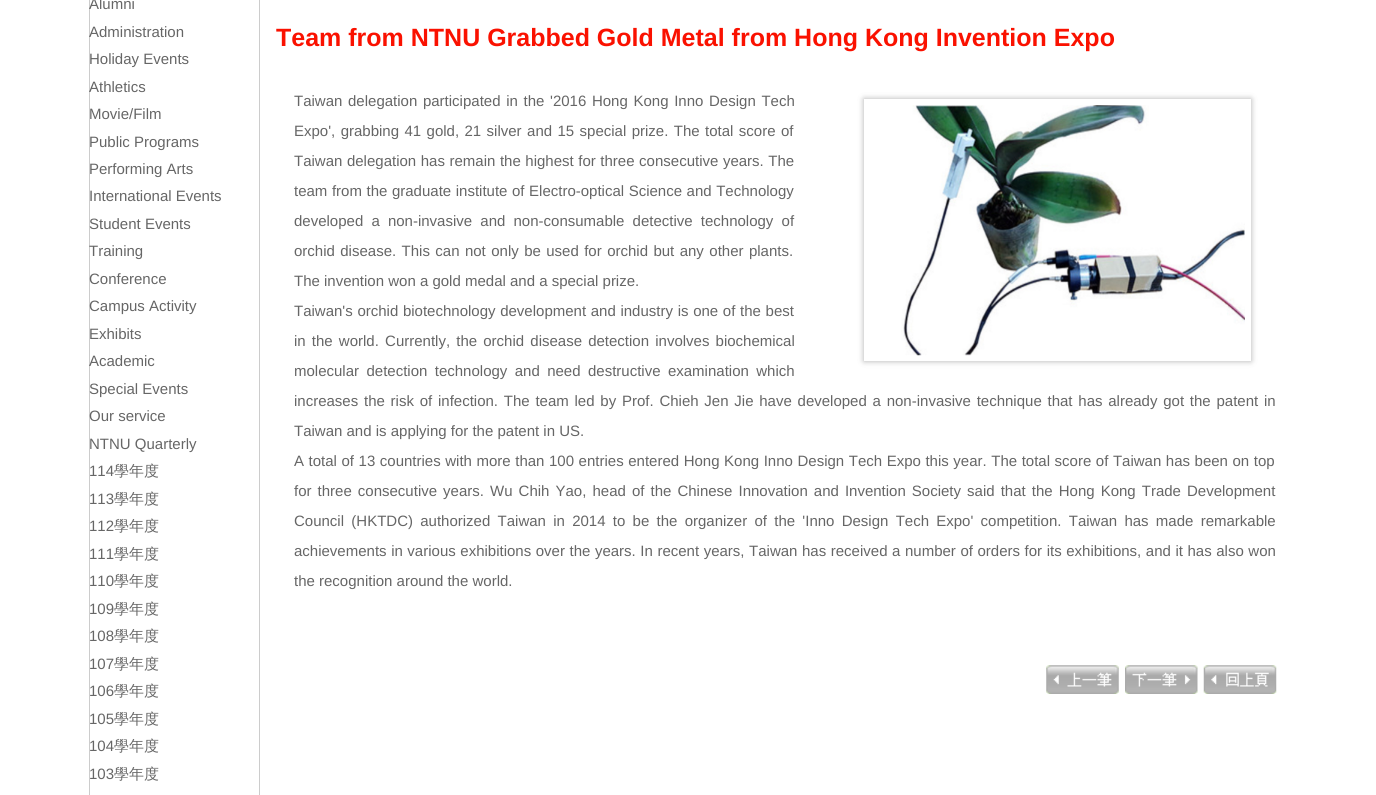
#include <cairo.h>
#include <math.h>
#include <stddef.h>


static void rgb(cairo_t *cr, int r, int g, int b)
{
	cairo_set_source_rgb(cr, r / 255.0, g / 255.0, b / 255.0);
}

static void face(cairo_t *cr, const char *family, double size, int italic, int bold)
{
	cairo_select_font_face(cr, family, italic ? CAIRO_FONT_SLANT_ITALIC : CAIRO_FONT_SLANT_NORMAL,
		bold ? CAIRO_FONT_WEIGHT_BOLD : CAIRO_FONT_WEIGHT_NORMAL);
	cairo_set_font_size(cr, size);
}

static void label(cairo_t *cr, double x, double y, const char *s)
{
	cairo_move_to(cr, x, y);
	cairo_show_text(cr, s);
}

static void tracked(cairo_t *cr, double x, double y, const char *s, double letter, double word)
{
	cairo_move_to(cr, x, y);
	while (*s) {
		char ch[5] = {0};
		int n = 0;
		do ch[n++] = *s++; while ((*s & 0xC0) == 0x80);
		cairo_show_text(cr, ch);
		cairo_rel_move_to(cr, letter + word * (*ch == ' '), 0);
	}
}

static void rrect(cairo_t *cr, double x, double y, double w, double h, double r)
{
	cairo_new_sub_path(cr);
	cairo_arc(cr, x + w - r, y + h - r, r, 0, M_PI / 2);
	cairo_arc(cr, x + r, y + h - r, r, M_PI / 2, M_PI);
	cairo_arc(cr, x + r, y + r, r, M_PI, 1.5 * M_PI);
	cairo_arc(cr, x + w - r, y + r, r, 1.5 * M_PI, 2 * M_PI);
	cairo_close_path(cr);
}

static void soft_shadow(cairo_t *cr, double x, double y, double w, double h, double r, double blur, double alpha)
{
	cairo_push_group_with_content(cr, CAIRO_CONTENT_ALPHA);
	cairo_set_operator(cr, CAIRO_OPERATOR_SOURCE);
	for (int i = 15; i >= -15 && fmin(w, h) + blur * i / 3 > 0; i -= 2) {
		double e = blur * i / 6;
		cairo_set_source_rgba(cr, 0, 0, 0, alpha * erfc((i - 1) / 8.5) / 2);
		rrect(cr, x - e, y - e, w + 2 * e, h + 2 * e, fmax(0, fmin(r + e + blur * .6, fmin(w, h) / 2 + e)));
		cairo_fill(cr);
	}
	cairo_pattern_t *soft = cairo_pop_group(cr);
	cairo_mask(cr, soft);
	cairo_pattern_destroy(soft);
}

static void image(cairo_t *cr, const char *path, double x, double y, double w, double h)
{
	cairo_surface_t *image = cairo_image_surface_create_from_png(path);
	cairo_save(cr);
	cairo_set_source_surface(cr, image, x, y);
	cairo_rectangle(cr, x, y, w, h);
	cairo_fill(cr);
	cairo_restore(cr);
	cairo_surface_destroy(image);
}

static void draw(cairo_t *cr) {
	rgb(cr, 255, 255, 255);
	cairo_paint(cr);
	cairo_rectangle(cr, 89.5, -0.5, 170, 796);
	rgb(cr, 204, 204, 204);
	cairo_set_line_width(cr, 1);
	cairo_stroke(cr);
	face(cr, "Liberation Sans", 15, 0, 0);
	rgb(cr, 102, 102, 102);
	label(cr, 89, 9, "Alumni");
	label(cr, 89, 37, "Administration");
	label(cr, 89, 64, "Holiday Events");
	label(cr, 89, 92, "Athletics");
	label(cr, 89, 119, "Movie/Film");
	label(cr, 89, 147, "Public Programs");
	label(cr, 89, 174, "Performing Arts");
	label(cr, 89, 201, "International Events");
	label(cr, 89, 229, "Student Events");
	label(cr, 89, 256, "Training");
	label(cr, 89, 284, "Conference");
	label(cr, 89, 311, "Campus Activity");
	label(cr, 89, 339, "Exhibits");
	label(cr, 89, 366, "Academic");
	label(cr, 89, 394, "Special Events");
	label(cr, 89, 421, "Our service");
	label(cr, 89, 449, "NTNU Quarterly");
	label(cr, 89, 476, "114");
	face(cr, "WenQuanYi Zen Hei Medium", 15, 0, 0);
	label(cr, 114, 476, "學年度");
	face(cr, "Liberation Sans", 15, 0, 0);
	label(cr, 89, 504, "113");
	face(cr, "WenQuanYi Zen Hei Medium", 15, 0, 0);
	label(cr, 114, 504, "學年度");
	face(cr, "Liberation Sans", 15, 0, 0);
	label(cr, 89, 531, "112");
	face(cr, "WenQuanYi Zen Hei Medium", 15, 0, 0);
	label(cr, 114, 531, "學年度");
	face(cr, "Liberation Sans", 15, 0, 0);
	label(cr, 89, 559, "111");
	face(cr, "WenQuanYi Zen Hei Medium", 15, 0, 0);
	label(cr, 114, 559, "學年度");
	face(cr, "Liberation Sans", 15, 0, 0);
	label(cr, 89, 586, "110");
	face(cr, "WenQuanYi Zen Hei Medium", 15, 0, 0);
	label(cr, 114, 586, "學年度");
	face(cr, "Liberation Sans", 15, 0, 0);
	label(cr, 89, 614, "109");
	face(cr, "WenQuanYi Zen Hei Medium", 15, 0, 0);
	label(cr, 114, 614, "學年度");
	face(cr, "Liberation Sans", 15, 0, 0);
	label(cr, 89, 641, "108");
	face(cr, "WenQuanYi Zen Hei Medium", 15, 0, 0);
	label(cr, 114, 641, "學年度");
	face(cr, "Liberation Sans", 15, 0, 0);
	label(cr, 89, 669, "107");
	face(cr, "WenQuanYi Zen Hei Medium", 15, 0, 0);
	label(cr, 114, 669, "學年度");
	face(cr, "Liberation Sans", 15, 0, 0);
	label(cr, 89, 696, "106");
	face(cr, "WenQuanYi Zen Hei Medium", 15, 0, 0);
	label(cr, 114, 696, "學年度");
	face(cr, "Liberation Sans", 15, 0, 0);
	label(cr, 89, 724, "105");
	face(cr, "WenQuanYi Zen Hei Medium", 15, 0, 0);
	label(cr, 114, 724, "學年度");
	face(cr, "Liberation Sans", 15, 0, 0);
	label(cr, 89, 751, "104");
	face(cr, "WenQuanYi Zen Hei Medium", 15, 0, 0);
	label(cr, 114, 751, "學年度");
	face(cr, "Liberation Sans", 15, 0, 0);
	label(cr, 89, 779, "103");
	face(cr, "WenQuanYi Zen Hei Medium", 15, 0, 0);
	label(cr, 114, 779, "學年度");
	face(cr, "Liberation Sans", 25, 0, 1);
	rgb(cr, 250, 17, 0);
	label(cr, 276, 46, "Team from NTNU Grabbed Gold Metal from Hong Kong Invention Expo");
	face(cr, "Liberation Sans", 15, 0, 0);
	rgb(cr, 102, 102, 102);
	tracked(cr, 294, 106, "Taiwan delegation participated in the '2016 Hong Kong Inno Design Tech", 0, 1.5);
	tracked(cr, 294, 136, "Expo', grabbing 41 gold, 21 silver and 15 special prize. The total score of", 0, 1.25);
	tracked(cr, 294, 166, "Taiwan delegation has remain the highest for three consecutive years. The", 0, 0.4);
	tracked(cr, 294, 196, "team from the graduate institute of Electro-optical Science and Technology", 0, 0.4);
	tracked(cr, 294, 226, "developed a non-invasive and non-consumable detective technology of", 0, 4);
	tracked(cr, 294, 256, "orchid disease. This can not only be used for orchid but any other plants.", 0, 1.25);
	label(cr, 294, 286, "The invention won a gold medal and a special prize.");
	cairo_save(cr);
	cairo_set_fill_rule(cr, CAIRO_FILL_RULE_EVEN_ODD);
	cairo_new_path(cr);
	cairo_move_to(cr, 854, 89);
	cairo_line_to(cr, 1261, 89);
	cairo_line_to(cr, 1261, 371);
	cairo_line_to(cr, 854, 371);
	cairo_close_path(cr);
	cairo_move_to(cr, 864, 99);
	cairo_line_to(cr, 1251, 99);
	cairo_line_to(cr, 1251, 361);
	cairo_line_to(cr, 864, 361);
	cairo_close_path(cr);
	cairo_clip(cr);
	rgb(cr, 50, 50, 50);
	soft_shadow(cr, 864, 99, 387, 262, 0, 3, 0.4);
	cairo_restore(cr);
	image(cr, "image0.png", 901, 105, 344, 251);
	tracked(cr, 294, 316, "Taiwan's orchid biotechnology development and industry is one of the best", 0, 0.5);
	tracked(cr, 294, 346, "in the world. Currently, the orchid disease detection involves biochemical", 0, 2);
	tracked(cr, 294, 376, "molecular detection technology and need destructive examination which", 0, 3.25);
	tracked(cr, 294, 406, "increases the risk of infection. The team led by Prof. Chieh Jen Jie have developed a non-invasive technique that has already got the patent in", 0, 1.6);
	label(cr, 294, 436, "Taiwan and is applying for the patent in US.");
	tracked(cr, 294, 466, "A total of 13 countries with more than 100 entries entered Hong Kong Inno Design Tech Expo this year. The total score of Taiwan has been on top", 0, 0.4);
	tracked(cr, 294, 496, "for three consecutive years. Wu Chih Yao, head of the Chinese Innovation and Invention Society said that the Hong Kong Trade Development", 0, 1.9);
	tracked(cr, 294, 526, "Council (HKTDC) authorized Taiwan in 2014 to be the organizer of the 'Inno Design Tech Expo' competition. Taiwan has made remarkable", 0, 3.1);
	tracked(cr, 294, 556, "achievements in various exhibitions over the years. In recent years, Taiwan has received a number of orders for its exhibitions, and it has also won", 0, 0.4);
	label(cr, 294, 586, "the recognition around the world.");
	image(cr, "image1.png", 1046, 665, 73, 29);
	image(cr, "image2.png", 1125, 665, 73, 29);
	image(cr, "image3.png", 1203, 665, 74, 29);
}

int main(void) {
	cairo_surface_t *surface = cairo_image_surface_create(CAIRO_FORMAT_RGB24, 1376, 795);
	cairo_t *cr = cairo_create(surface);
	cairo_font_options_t *options = cairo_font_options_create();
	cairo_font_options_set_hint_metrics(options, CAIRO_HINT_METRICS_OFF);
	cairo_font_options_set_hint_style(options, CAIRO_HINT_STYLE_NONE);
	cairo_set_font_options(cr, options);
	cairo_set_miter_limit(cr, 4);
	draw(cr);
	cairo_surface_write_to_png(surface, "render.png");
	cairo_font_options_destroy(options);
	cairo_destroy(cr);
	cairo_surface_destroy(surface);
	return 0;
}
